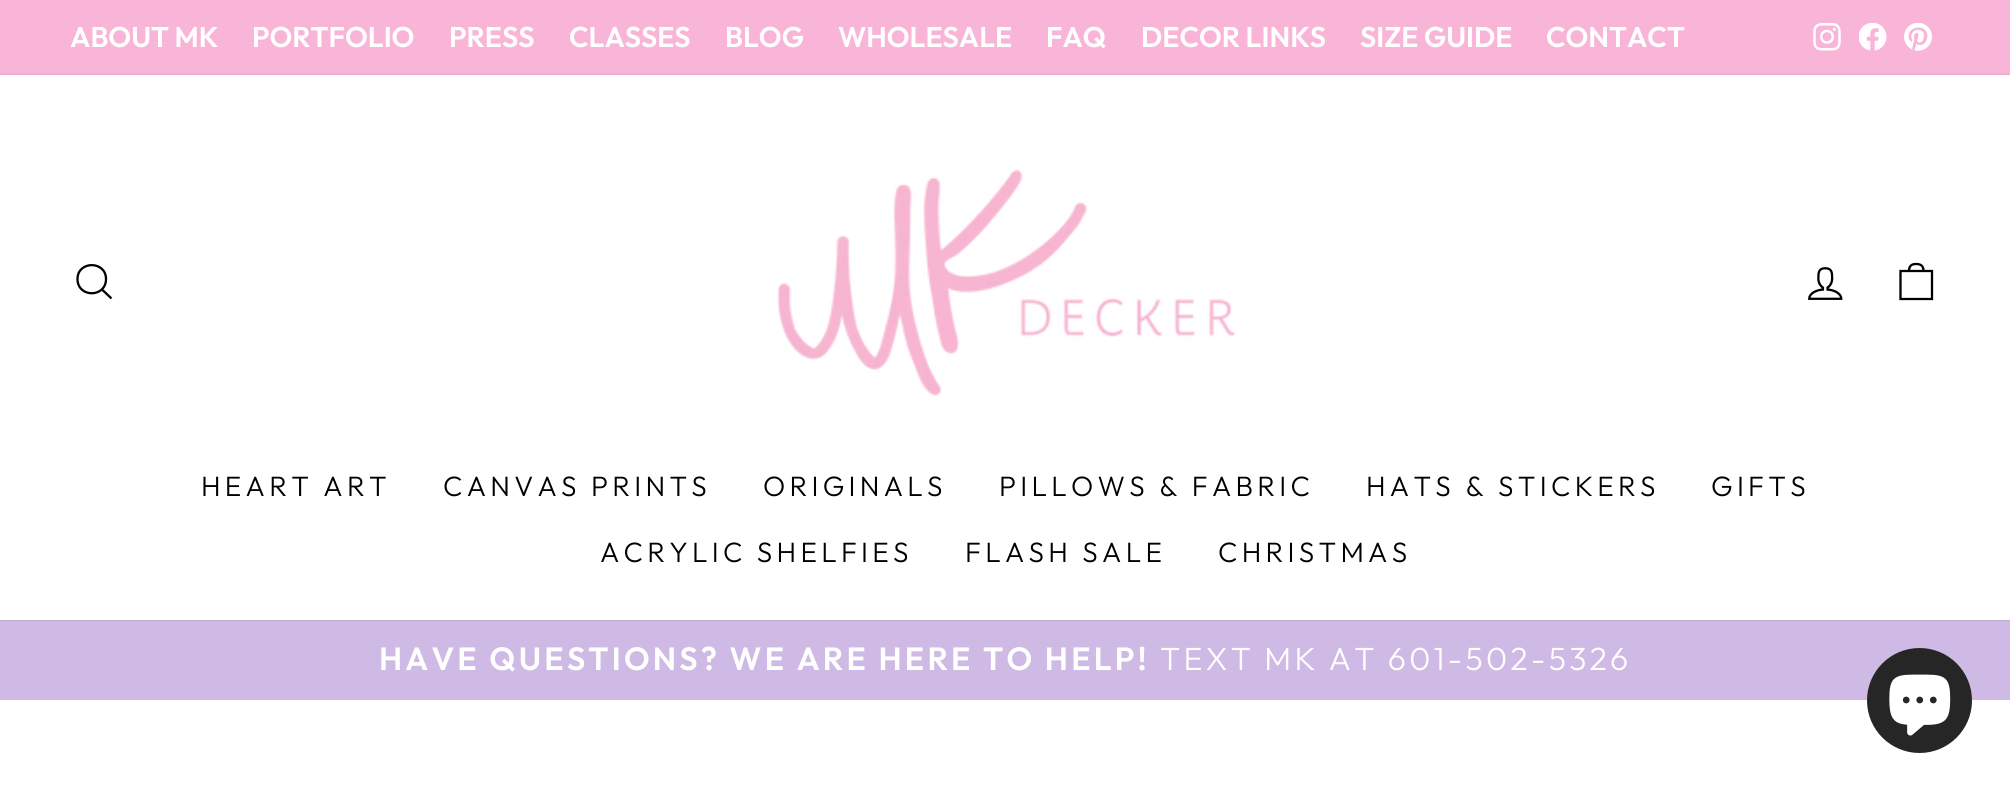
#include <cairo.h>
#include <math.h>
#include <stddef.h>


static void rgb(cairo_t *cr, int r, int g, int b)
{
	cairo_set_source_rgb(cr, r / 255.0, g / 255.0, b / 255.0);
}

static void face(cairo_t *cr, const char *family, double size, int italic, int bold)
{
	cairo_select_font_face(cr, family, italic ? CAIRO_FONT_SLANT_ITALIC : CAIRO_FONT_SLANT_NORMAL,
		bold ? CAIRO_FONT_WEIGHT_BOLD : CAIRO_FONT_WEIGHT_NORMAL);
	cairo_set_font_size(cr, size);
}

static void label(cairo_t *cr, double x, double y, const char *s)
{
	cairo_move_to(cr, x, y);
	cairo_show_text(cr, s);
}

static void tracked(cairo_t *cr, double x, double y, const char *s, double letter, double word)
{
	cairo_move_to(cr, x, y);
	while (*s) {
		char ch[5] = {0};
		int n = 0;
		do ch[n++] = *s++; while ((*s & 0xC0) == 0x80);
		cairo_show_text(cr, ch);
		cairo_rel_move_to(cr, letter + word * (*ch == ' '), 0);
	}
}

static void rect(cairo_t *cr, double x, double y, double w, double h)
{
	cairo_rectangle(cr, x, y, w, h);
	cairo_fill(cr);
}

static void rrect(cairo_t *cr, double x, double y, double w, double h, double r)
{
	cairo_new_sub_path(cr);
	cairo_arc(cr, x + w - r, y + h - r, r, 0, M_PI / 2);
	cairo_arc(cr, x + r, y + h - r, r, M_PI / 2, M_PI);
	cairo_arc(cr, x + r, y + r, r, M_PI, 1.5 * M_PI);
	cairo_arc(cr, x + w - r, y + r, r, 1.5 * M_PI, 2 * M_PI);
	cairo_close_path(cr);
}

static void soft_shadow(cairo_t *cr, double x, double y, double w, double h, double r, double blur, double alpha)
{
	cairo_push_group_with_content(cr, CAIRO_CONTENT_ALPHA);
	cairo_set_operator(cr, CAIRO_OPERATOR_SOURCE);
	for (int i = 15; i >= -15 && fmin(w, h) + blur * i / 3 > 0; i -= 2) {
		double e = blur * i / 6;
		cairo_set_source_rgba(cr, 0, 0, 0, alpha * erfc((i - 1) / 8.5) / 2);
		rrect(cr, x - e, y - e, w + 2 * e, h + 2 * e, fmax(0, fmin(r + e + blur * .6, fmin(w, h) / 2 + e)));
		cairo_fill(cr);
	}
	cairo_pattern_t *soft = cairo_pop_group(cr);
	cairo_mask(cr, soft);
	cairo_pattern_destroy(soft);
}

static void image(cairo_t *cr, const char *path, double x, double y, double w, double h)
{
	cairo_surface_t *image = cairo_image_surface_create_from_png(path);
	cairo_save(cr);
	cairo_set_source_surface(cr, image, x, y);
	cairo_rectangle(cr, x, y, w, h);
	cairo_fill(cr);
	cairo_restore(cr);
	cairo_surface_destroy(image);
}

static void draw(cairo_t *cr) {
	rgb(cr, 255, 255, 255);
	cairo_paint(cr);
	rgb(cr, 249, 181, 215);
	rect(cr, 0, 0, 2010, 75);
	face(cr, "Outfit SemiBold", 28.5, 0, 0);
	rgb(cr, 255, 255, 255);
	label(cr, 70, 47, "ABOUT MK");
	label(cr, 252, 47, "PORTFOLIO");
	label(cr, 449, 47, "PRESS");
	label(cr, 569, 47, "CLASSES");
	label(cr, 725, 47, "BLOG");
	label(cr, 838, 47, "WHOLESALE");
	label(cr, 1046, 47, "FAQ");
	label(cr, 1141, 47, "DECOR LINKS");
	label(cr, 1360, 47, "SIZE GUIDE");
	label(cr, 1546, 47, "CONTACT");
	image(cr, "image0.png", 1813, 23, 28, 28);
	image(cr, "image1.png", 1859, 23, 28, 28);
	image(cr, "image2.png", 1904, 23, 28, 28);
	rgb(cr, 207, 186, 229);
	rect(cr, 0, 620, 2010, 80);
	rgb(cr, 0, 0, 0);
	soft_shadow(cr, 0, 75, 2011, 545, 0, 1, 0.2);
	rgb(cr, 255, 255, 255);
	rect(cr, 0, 75, 2010, 545);
	cairo_new_path(cr);
	cairo_move_to(cr, 106, 279);
	cairo_curve_to(cr, 106, 298, 77.5, 298, 77.5, 279);
	cairo_curve_to(cr, 77.5, 260.5, 106, 260.5, 106, 279);
	cairo_close_path(cr);
	cairo_move_to(cr, 111.5, 298.5);
	cairo_line_to(cr, 102, 289.5);
	rgb(cr, 0, 0, 0);
	cairo_set_line_width(cr, 2.3);
	cairo_stroke(cr);
	image(cr, "image3.png", 777, 169, 459, 227);
	image(cr, "image4.png", 1808, 267, 35, 33);
	cairo_new_path(cr);
	cairo_move_to(cr, 1900.5, 271);
	cairo_line_to(cr, 1932, 271);
	cairo_line_to(cr, 1932, 299);
	cairo_line_to(cr, 1900.5, 299);
	cairo_close_path(cr);
	cairo_move_to(cr, 1909, 271);
	cairo_curve_to(cr, 1909, 265.5, 1912, 264, 1916, 264);
	cairo_curve_to(cr, 1920.5, 264, 1923.5, 265.5, 1923.5, 271);
	cairo_stroke(cr);
	face(cr, "Outfit Light", 28, 0, 0);
	tracked(cr, 201, 496, "HEART ART", 4.25, 0);
	tracked(cr, 443, 496, "CANVAS PRINTS", 4.25, 0);
	tracked(cr, 763, 496, "ORIGINALS", 4.25, 0);
	tracked(cr, 999, 496, "PILLOWS & FABRIC", 4.25, 0);
	tracked(cr, 1366, 496, "HATS & STICKERS", 4.25, 0);
	tracked(cr, 1711, 496, "GIFTS", 4.25, 0);
	tracked(cr, 600, 562, "ACRYLIC SHELFIES", 4.25, 0);
	tracked(cr, 965, 562, "FLASH SALE", 4.25, 0);
	tracked(cr, 1218, 562, "CHRISTMAS", 4.25, 0);
	face(cr, "Outfit SemiBold", 32.1, 0, 0);
	rgb(cr, 255, 255, 255);
	tracked(cr, 379, 670, "HAVE QUESTIONS? WE ARE HERE TO HELP!", 3.2, 0);
	face(cr, "Outfit Light", 32.1, 0, 0);
	tracked(cr, 1160, 670, "TEXT MK AT 601-502-5326", 3.2, 0);
	rgb(cr, 38, 38, 38);
	cairo_new_path(cr);
	cairo_arc(cr, 1919.5, 700.5, 52.5, 0, 2 * M_PI);
	cairo_fill(cr);
	image(cr, "image5.png", 1889, 674, 62, 62);
}

int main(void) {
	cairo_surface_t *surface = cairo_image_surface_create(CAIRO_FORMAT_RGB24, 2010, 789);
	cairo_t *cr = cairo_create(surface);
	cairo_font_options_t *options = cairo_font_options_create();
	cairo_font_options_set_hint_metrics(options, CAIRO_HINT_METRICS_OFF);
	cairo_font_options_set_hint_style(options, CAIRO_HINT_STYLE_NONE);
	cairo_set_font_options(cr, options);
	cairo_set_miter_limit(cr, 4);
	draw(cr);
	cairo_surface_write_to_png(surface, "render.png");
	cairo_font_options_destroy(options);
	cairo_destroy(cr);
	cairo_surface_destroy(surface);
	return 0;
}
